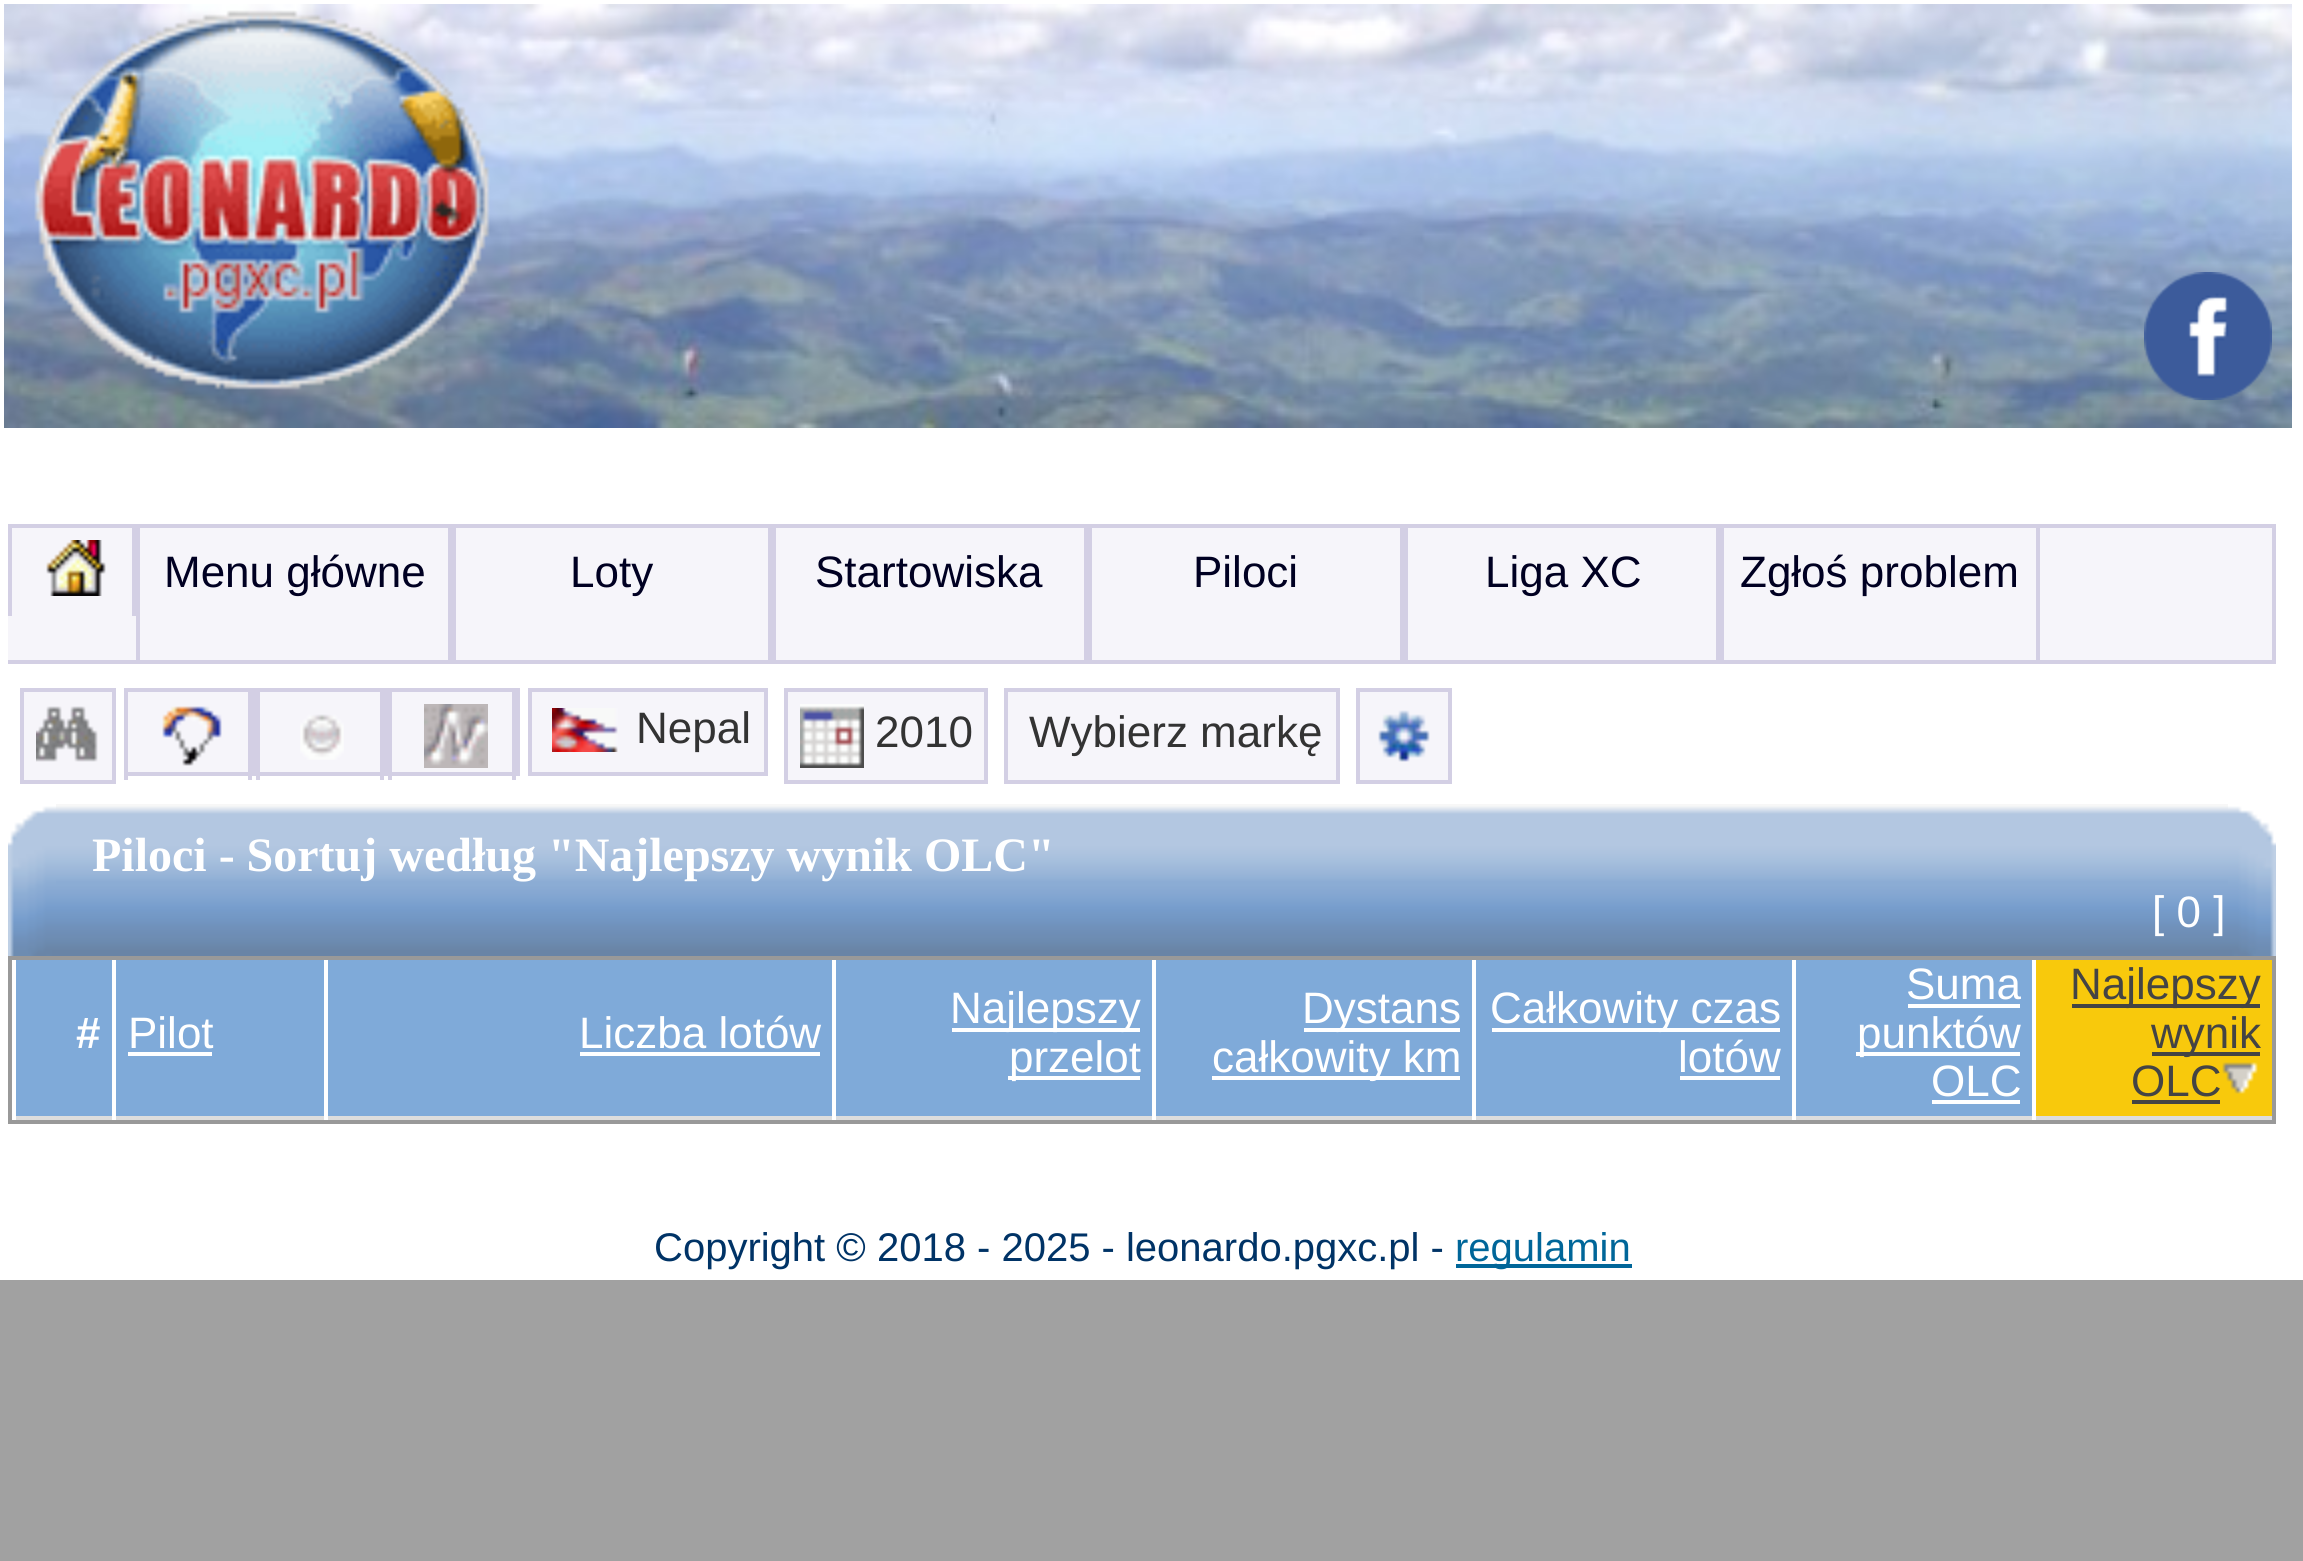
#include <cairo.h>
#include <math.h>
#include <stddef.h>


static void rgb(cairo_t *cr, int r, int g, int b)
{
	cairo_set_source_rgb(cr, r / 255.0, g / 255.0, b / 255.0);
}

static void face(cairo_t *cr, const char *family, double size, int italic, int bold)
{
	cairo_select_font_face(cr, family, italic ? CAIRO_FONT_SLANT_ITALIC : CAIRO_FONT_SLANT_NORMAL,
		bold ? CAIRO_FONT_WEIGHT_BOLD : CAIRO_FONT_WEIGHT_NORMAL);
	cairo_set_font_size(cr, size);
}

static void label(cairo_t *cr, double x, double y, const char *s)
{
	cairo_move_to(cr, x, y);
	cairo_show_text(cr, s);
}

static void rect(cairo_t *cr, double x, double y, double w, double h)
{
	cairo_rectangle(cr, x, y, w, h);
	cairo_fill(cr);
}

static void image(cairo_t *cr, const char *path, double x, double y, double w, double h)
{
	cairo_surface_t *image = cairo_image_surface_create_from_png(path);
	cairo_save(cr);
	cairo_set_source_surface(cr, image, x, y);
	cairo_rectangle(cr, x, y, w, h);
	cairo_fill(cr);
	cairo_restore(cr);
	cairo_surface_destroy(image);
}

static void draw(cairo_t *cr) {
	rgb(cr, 161, 161, 161);
	cairo_paint(cr);
	rgb(cr, 255, 255, 255);
	rect(cr, 0, 0, 2303, 1280);
	image(cr, "image0.png", 4, 4, 2288, 424);
	image(cr, "image1.png", 34, 10, 456, 380);
	image(cr, "image2.png", 2144, 272, 128, 128);
	rgb(cr, 246, 245, 250);
	rect(cr, 8, 528, 2264, 132);
	rgb(cr, 211, 207, 228);
	rect(cr, 8, 524, 2268, 4);
	rect(cr, 2272, 524, 4, 140);
	rect(cr, 8, 660, 2268, 4);
	rect(cr, 132, 528, 4, 88);
	rect(cr, 8, 528, 4, 88);
	image(cr, "image3.png", 46, 540, 60, 56);
	rect(cr, 448, 528, 8, 132);
	rect(cr, 136, 528, 4, 132);
	face(cr, "Liberation Sans", 44, 0, 0);
	rgb(cr, 0, 0, 34);
	label(cr, 164, 587, "Menu główne");
	rgb(cr, 211, 207, 228);
	rect(cr, 768, 528, 8, 132);
	rgb(cr, 0, 0, 34);
	label(cr, 570, 587, "Loty");
	rgb(cr, 211, 207, 228);
	rect(cr, 1084, 528, 8, 132);
	rgb(cr, 0, 0, 34);
	label(cr, 815, 587, "Startowiska");
	rgb(cr, 211, 207, 228);
	rect(cr, 1400, 528, 8, 132);
	rgb(cr, 0, 0, 34);
	label(cr, 1193, 587, "Piloci");
	rgb(cr, 211, 207, 228);
	rect(cr, 1716, 528, 8, 132);
	rgb(cr, 0, 0, 34);
	label(cr, 1485, 587, "Liga XC");
	rgb(cr, 211, 207, 228);
	rect(cr, 2036, 528, 4, 132);
	rgb(cr, 0, 0, 34);
	label(cr, 1740, 587, "Zgłoś problem");
	rgb(cr, 246, 245, 250);
	cairo_rectangle(cr, 22, 690, 92, 92);
	cairo_fill_preserve(cr);
	rgb(cr, 211, 207, 228);
	cairo_set_line_width(cr, 4);
	cairo_stroke(cr);
	image(cr, "image4.png", 36, 706, 62, 56);
	rgb(cr, 246, 245, 250);
	rect(cr, 128, 692, 120, 80);
	rgb(cr, 211, 207, 228);
	rect(cr, 124, 688, 396, 4);
	rect(cr, 252, 688, 4, 88);
	rect(cr, 124, 772, 132, 4);
	rect(cr, 248, 692, 4, 88);
	rect(cr, 124, 692, 4, 88);
	image(cr, "image5.png", 162, 706, 60, 60);
	rgb(cr, 246, 245, 250);
	rect(cr, 260, 692, 120, 80);
	rgb(cr, 211, 207, 228);
	rect(cr, 384, 688, 4, 88);
	rect(cr, 256, 772, 132, 4);
	rect(cr, 380, 692, 4, 88);
	rect(cr, 256, 692, 4, 88);
	image(cr, "image6.png", 300, 714, 44, 46);
	rgb(cr, 246, 245, 250);
	rect(cr, 392, 692, 120, 80);
	rgb(cr, 211, 207, 228);
	rect(cr, 516, 688, 4, 88);
	rect(cr, 388, 772, 132, 4);
	rect(cr, 512, 692, 4, 88);
	rect(cr, 388, 692, 4, 88);
	image(cr, "image7.png", 424, 704, 64, 64);
	rgb(cr, 246, 245, 250);
	cairo_rectangle(cr, 530, 690, 236, 84);
	cairo_fill_preserve(cr);
	rgb(cr, 211, 207, 228);
	cairo_stroke(cr);
	image(cr, "image8.png", 552, 708, 66, 44);
	rgb(cr, 51, 51, 51);
	label(cr, 636, 743, "Nepal");
	rgb(cr, 246, 245, 250);
	cairo_rectangle(cr, 786, 690, 200, 92);
	cairo_fill_preserve(cr);
	rgb(cr, 211, 207, 228);
	cairo_stroke(cr);
	image(cr, "image9.png", 800, 704, 64, 64);
	rgb(cr, 51, 51, 51);
	label(cr, 875, 747, "2010");
	rgb(cr, 246, 245, 250);
	cairo_rectangle(cr, 1006, 690, 332, 92);
	cairo_fill_preserve(cr);
	rgb(cr, 211, 207, 228);
	cairo_stroke(cr);
	rgb(cr, 51, 51, 51);
	label(cr, 1029, 747, "Wybierz markę");
	rgb(cr, 246, 245, 250);
	cairo_rectangle(cr, 1358, 690, 92, 92);
	cairo_fill_preserve(cr);
	rgb(cr, 211, 207, 228);
	cairo_stroke(cr);
	image(cr, "image10.png", 1378, 710, 52, 52);
	image(cr, "image11.png", 56, 804, 2172, 152);
	image(cr, "image12.png", 8, 804, 48, 152);
	face(cr, "Liberation Serif", 48, 0, 1);
	rgb(cr, 255, 255, 255);
	label(cr, 92, 871, "Piloci - Sortuj według \"Najlepszy wynik OLC\"");
	image(cr, "image13.png", 2228, 804, 48, 152);
	face(cr, "Liberation Sans", 44, 0, 0);
	label(cr, 2152, 927, "[ 0 ]");
	cairo_rectangle(cr, 10, 958, 2264, 164);
	rgb(cr, 153, 153, 153);
	cairo_stroke(cr);
	rgb(cr, 127, 170, 217);
	rect(cr, 16, 960, 96, 156);
	rgb(cr, 221, 221, 221);
	rect(cr, 12, 1116, 2260, 4);
	rgb(cr, 255, 255, 255);
	rect(cr, 12, 1116, 4, 4);
	face(cr, "Liberation Sans", 44, 0, 1);
	label(cr, 76, 1048, "#");
	rgb(cr, 127, 170, 217);
	rect(cr, 116, 960, 208, 156);
	rgb(cr, 255, 255, 255);
	rect(cr, 112, 1116, 4, 4);
	face(cr, "Liberation Sans", 44, 0, 0);
	label(cr, 128, 1048, "Pilot");
	rect(cr, 128, 1052, 84, 4);
	rgb(cr, 127, 170, 217);
	rect(cr, 328, 960, 504, 156);
	rgb(cr, 255, 255, 255);
	rect(cr, 324, 1116, 4, 4);
	label(cr, 579, 1048, "Liczba lotów");
	rect(cr, 580, 1052, 240, 4);
	rgb(cr, 127, 170, 217);
	rect(cr, 836, 960, 316, 156);
	rgb(cr, 255, 255, 255);
	rect(cr, 832, 1116, 4, 4);
	rect(cr, 952, 1028, 188, 4);
	label(cr, 950, 1023, "Najlepszy");
	rect(cr, 1008, 1076, 132, 4);
	label(cr, 1009, 1072, "przelot");
	rgb(cr, 127, 170, 217);
	rect(cr, 1156, 960, 316, 156);
	rgb(cr, 255, 255, 255);
	rect(cr, 1152, 1116, 4, 4);
	rect(cr, 1304, 1028, 156, 4);
	label(cr, 1302, 1023, "Dystans");
	rect(cr, 1212, 1076, 248, 4);
	label(cr, 1212, 1072, "całkowity km");
	rgb(cr, 127, 170, 217);
	rect(cr, 1476, 960, 316, 156);
	rgb(cr, 255, 255, 255);
	rect(cr, 1472, 1116, 4, 4);
	rect(cr, 1492, 1028, 288, 4);
	label(cr, 1490, 1023, "Całkowity czas");
	label(cr, 1678, 1072, "lotów");
	rect(cr, 1680, 1076, 100, 4);
	rgb(cr, 127, 170, 217);
	rect(cr, 1796, 960, 236, 156);
	rgb(cr, 255, 255, 255);
	rect(cr, 1792, 1116, 4, 4);
	label(cr, 1906, 999, "Suma");
	rect(cr, 1908, 1004, 112, 4);
	rect(cr, 1856, 1052, 164, 4);
	label(cr, 1857, 1048, "punktów");
	label(cr, 1931, 1096, "OLC");
	rect(cr, 1932, 1100, 88, 4);
	rgb(cr, 248, 201, 12);
	rect(cr, 2036, 960, 236, 156);
	rgb(cr, 255, 255, 255);
	rect(cr, 2032, 1116, 4, 4);
	rgb(cr, 68, 68, 68);
	rect(cr, 2072, 1004, 188, 4);
	label(cr, 2070, 999, "Najlepszy");
	rect(cr, 2152, 1052, 108, 4);
	label(cr, 2151, 1048, "wynik");
	label(cr, 2131, 1096, "OLC");
	rect(cr, 2132, 1100, 88, 4);
	image(cr, "image14.png", 2222, 1062, 36, 32);
	face(cr, "Liberation Sans", 40, 0, 0);
	rgb(cr, 0, 51, 102);
	label(cr, 654, 1261, "Copyright © 2018 - 2025 - leonardo.pgxc.pl -");
	rgb(cr, 0, 102, 153);
	rect(cr, 1456, 1264, 176, 4);
	label(cr, 1455, 1261, "regulamin");
}

int main(void) {
	cairo_surface_t *surface = cairo_image_surface_create(CAIRO_FORMAT_RGB24, 2303, 1561);
	cairo_t *cr = cairo_create(surface);
	cairo_font_options_t *options = cairo_font_options_create();
	cairo_font_options_set_hint_metrics(options, CAIRO_HINT_METRICS_OFF);
	cairo_font_options_set_hint_style(options, CAIRO_HINT_STYLE_NONE);
	cairo_set_font_options(cr, options);
	cairo_set_miter_limit(cr, 4);
	draw(cr);
	cairo_surface_write_to_png(surface, "render.png");
	cairo_font_options_destroy(options);
	cairo_destroy(cr);
	cairo_surface_destroy(surface);
	return 0;
}
